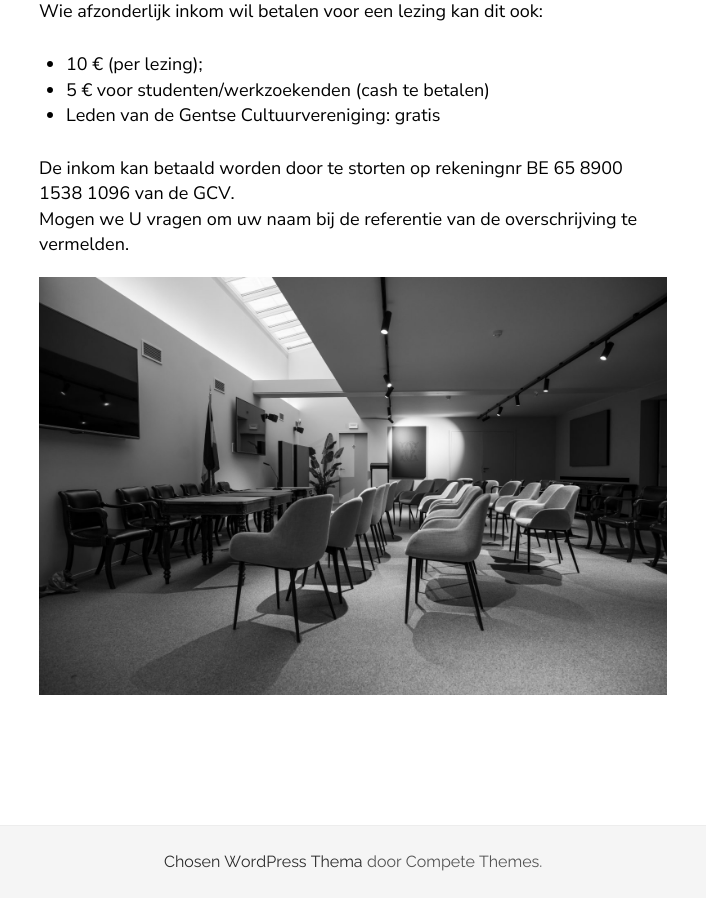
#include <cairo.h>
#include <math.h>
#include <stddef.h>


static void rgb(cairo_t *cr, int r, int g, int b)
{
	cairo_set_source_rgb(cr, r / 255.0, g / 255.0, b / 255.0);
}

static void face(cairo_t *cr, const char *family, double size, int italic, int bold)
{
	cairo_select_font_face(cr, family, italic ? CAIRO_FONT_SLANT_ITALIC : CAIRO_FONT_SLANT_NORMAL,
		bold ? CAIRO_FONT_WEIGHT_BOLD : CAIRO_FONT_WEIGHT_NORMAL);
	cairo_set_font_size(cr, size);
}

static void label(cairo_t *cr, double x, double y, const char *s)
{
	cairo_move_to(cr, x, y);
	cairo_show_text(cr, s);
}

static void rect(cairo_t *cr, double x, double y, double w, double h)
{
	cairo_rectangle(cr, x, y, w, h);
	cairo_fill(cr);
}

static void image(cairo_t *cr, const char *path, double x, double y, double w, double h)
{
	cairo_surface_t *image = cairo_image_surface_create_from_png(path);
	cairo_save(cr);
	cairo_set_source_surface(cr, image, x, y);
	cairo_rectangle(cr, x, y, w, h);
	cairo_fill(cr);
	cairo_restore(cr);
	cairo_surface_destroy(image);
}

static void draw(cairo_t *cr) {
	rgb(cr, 255, 255, 255);
	cairo_paint(cr);
	face(cr, "Nunito Sans", 18, 0, 0);
	rgb(cr, 0, 0, 0);
	label(cr, 39, 17, "Wie afzonderlijk inkom wil betalen voor een lezing kan dit ook:");
	cairo_new_path(cr);
	cairo_arc(cr, 50, 64, 3, 0, 2 * M_PI);
	cairo_fill(cr);
	label(cr, 66, 70, "10 € (per lezing);");
	cairo_new_path(cr);
	cairo_arc(cr, 50, 90, 3, 0, 2 * M_PI);
	cairo_fill(cr);
	label(cr, 66, 96, "5 € voor studenten/werkzoekenden (cash te betalen)");
	cairo_new_path(cr);
	cairo_arc(cr, 50, 115, 3, 0, 2 * M_PI);
	cairo_fill(cr);
	label(cr, 66, 121, "Leden van de Gentse Cultuurvereniging: gratis");
	label(cr, 39, 174, "De inkom kan betaald worden door te storten op rekeningnr BE 65 8900");
	label(cr, 39, 199, "1538 1096 van de GCV.");
	label(cr, 39, 225, "Mogen we U vragen om uw naam bij de referentie van de overschrijving te");
	label(cr, 39, 250, "vermelden.");
	image(cr, "image0.png", 39, 277, 628, 418);
	rgb(cr, 245, 245, 245);
	rect(cr, 0, 826, 706, 72);
	rgb(cr, 237, 237, 237);
	rect(cr, 0, 825, 706, 1);
	face(cr, "Raleway", 16, 0, 0);
	rgb(cr, 43, 43, 43);
	label(cr, 164, 867, "Chosen WordPress Thema");
	rgb(cr, 84, 84, 84);
	label(cr, 367, 867, "door Compete Themes.");
}

int main(void) {
	cairo_surface_t *surface = cairo_image_surface_create(CAIRO_FORMAT_RGB24, 706, 898);
	cairo_t *cr = cairo_create(surface);
	cairo_font_options_t *options = cairo_font_options_create();
	cairo_font_options_set_hint_metrics(options, CAIRO_HINT_METRICS_OFF);
	cairo_font_options_set_hint_style(options, CAIRO_HINT_STYLE_NONE);
	cairo_set_font_options(cr, options);
	cairo_set_miter_limit(cr, 4);
	draw(cr);
	cairo_surface_write_to_png(surface, "render.png");
	cairo_font_options_destroy(options);
	cairo_destroy(cr);
	cairo_surface_destroy(surface);
	return 0;
}
